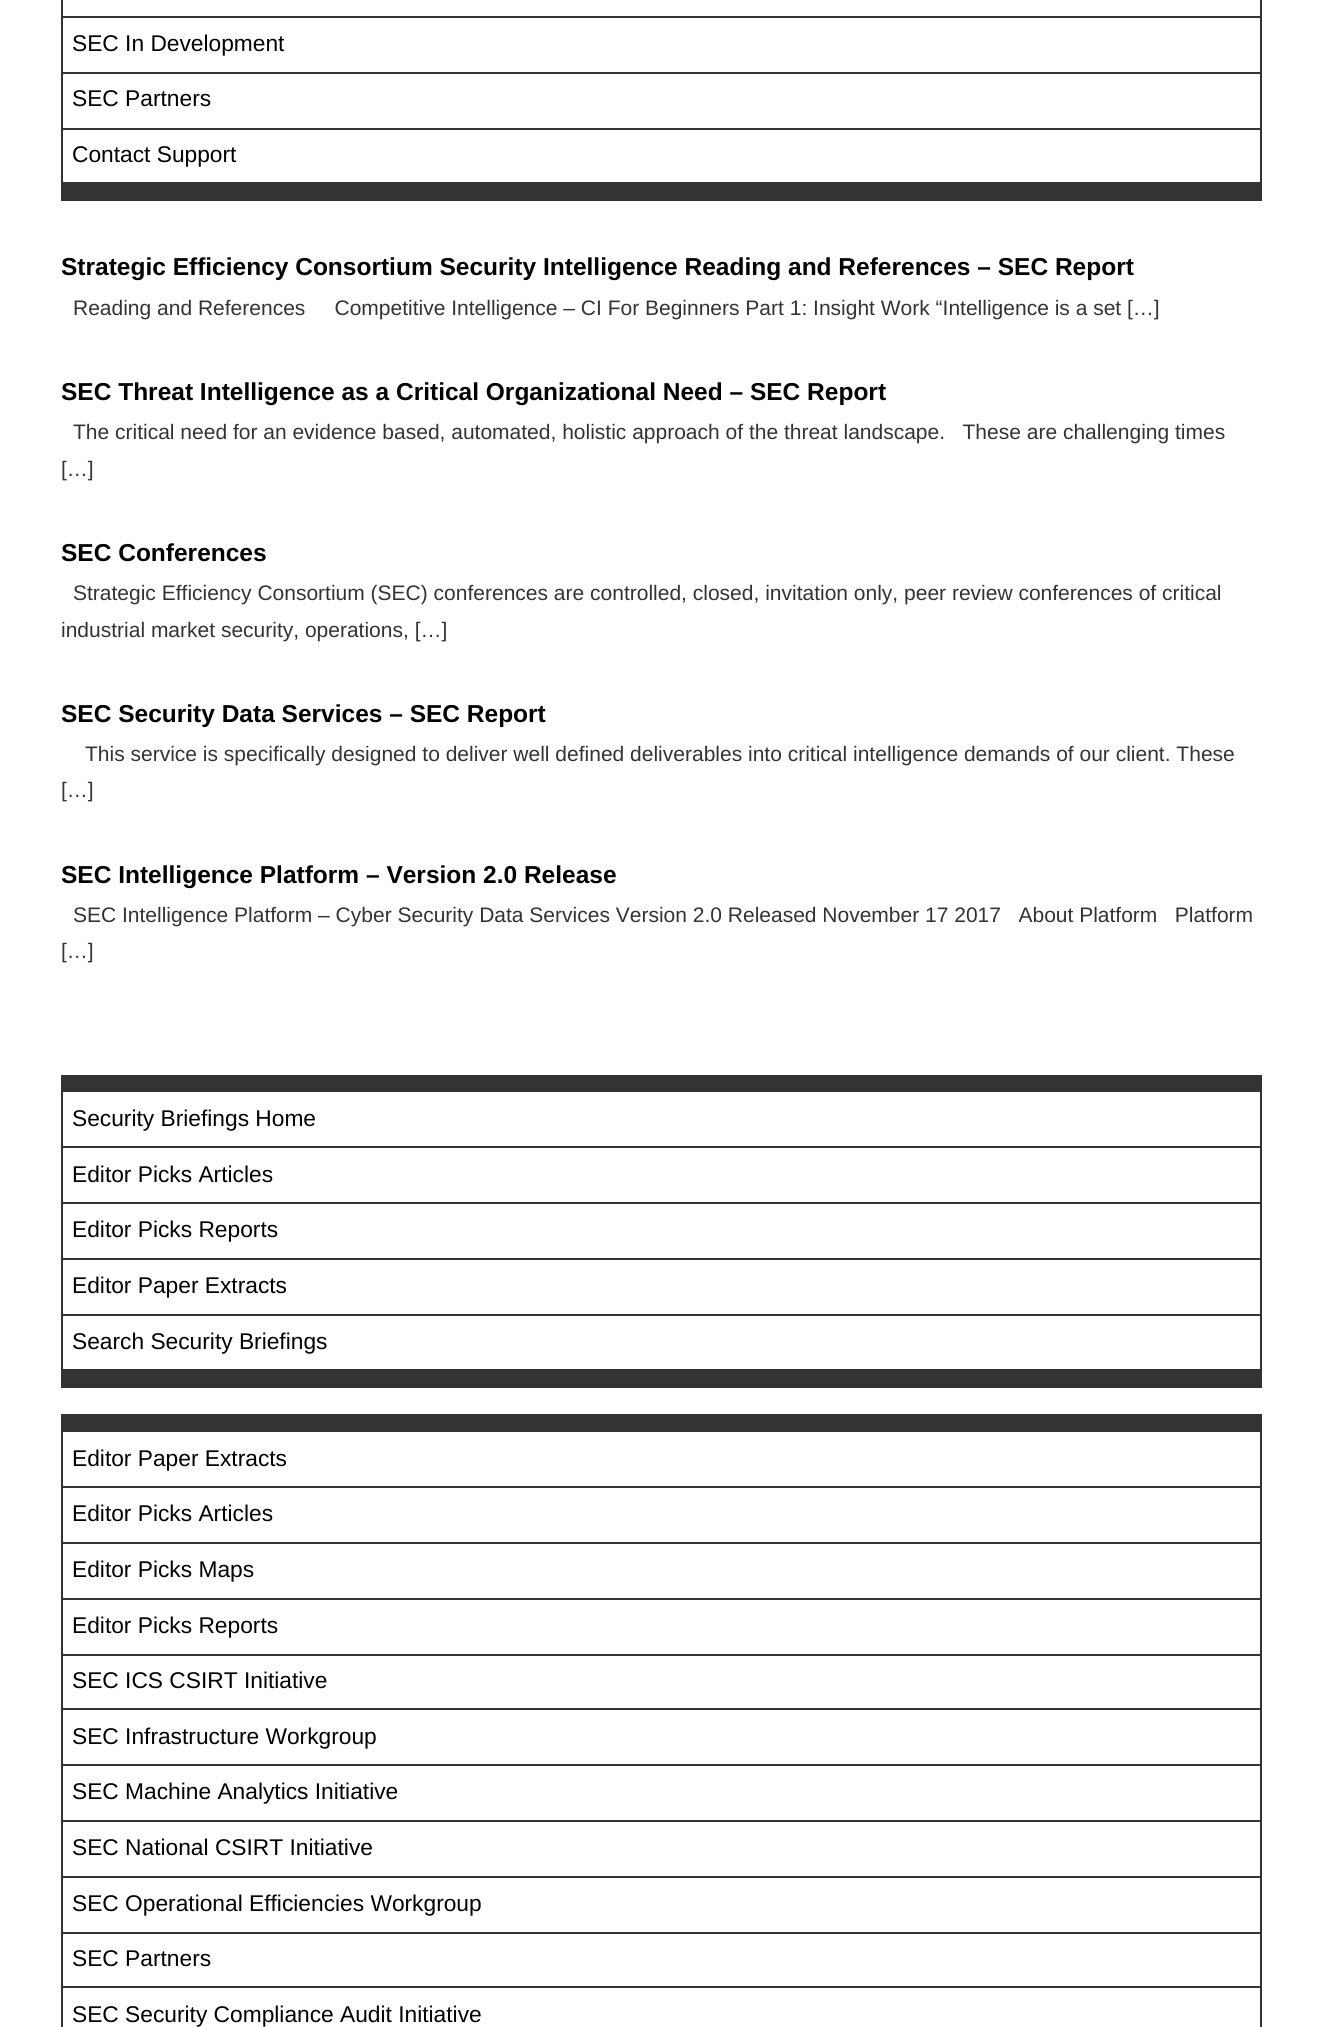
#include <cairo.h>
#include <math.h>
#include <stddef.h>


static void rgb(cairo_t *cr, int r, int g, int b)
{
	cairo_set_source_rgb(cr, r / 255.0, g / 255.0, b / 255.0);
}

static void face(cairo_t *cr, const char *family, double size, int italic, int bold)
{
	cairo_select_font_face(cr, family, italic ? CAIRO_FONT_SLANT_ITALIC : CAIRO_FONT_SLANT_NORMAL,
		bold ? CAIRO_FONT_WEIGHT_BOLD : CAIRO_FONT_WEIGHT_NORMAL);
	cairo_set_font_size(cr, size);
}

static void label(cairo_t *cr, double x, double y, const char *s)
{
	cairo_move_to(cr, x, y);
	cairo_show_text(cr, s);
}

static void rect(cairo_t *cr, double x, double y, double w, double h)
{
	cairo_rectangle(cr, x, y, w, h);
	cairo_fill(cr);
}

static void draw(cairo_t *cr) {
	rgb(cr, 255, 255, 255);
	cairo_paint(cr);
	rgb(cr, 51, 51, 51);
	rect(cr, 61, 184, 1201, 17);
	rect(cr, 1260, 0, 2, 184);
	rect(cr, 61, 16, 1201, 2);
	rect(cr, 61, 0, 2, 18);
	rect(cr, 61, 72, 1201, 2);
	rect(cr, 61, 18, 2, 56);
	face(cr, "Liberation Sans", 22.75, 0, 0);
	rgb(cr, 0, 0, 0);
	label(cr, 72, 51, "SEC In Development");
	rgb(cr, 51, 51, 51);
	rect(cr, 61, 128, 1201, 2);
	rect(cr, 61, 74, 2, 56);
	rgb(cr, 0, 0, 0);
	label(cr, 72, 106, "SEC Partners");
	rgb(cr, 51, 51, 51);
	rect(cr, 61, 182, 1201, 2);
	rect(cr, 61, 130, 2, 54);
	rgb(cr, 0, 0, 0);
	label(cr, 72, 162, "Contact Support");
	face(cr, "Liberation Sans", 24.5, 0, 1);
	label(cr, 61, 275, "Strategic Efficiency Consortium Security Intelligence Reading and References – SEC Report");
	face(cr, "Liberation Sans", 21, 0, 0);
	rgb(cr, 51, 51, 51);
	label(cr, 73, 315, "Reading and References     Competitive Intelligence – CI For Beginners Part 1: Insight Work “Intelligence is a set […]");
	face(cr, "Liberation Sans", 24.5, 0, 1);
	rgb(cr, 0, 0, 0);
	label(cr, 61, 400, "SEC Threat Intelligence as a Critical Organizational Need – SEC Report");
	face(cr, "Liberation Sans", 21, 0, 0);
	rgb(cr, 51, 51, 51);
	label(cr, 73, 439, "The critical need for an evidence based, automated, holistic approach of the threat landscape.   These are challenging times");
	label(cr, 61, 476, "[…]");
	face(cr, "Liberation Sans", 24.5, 0, 1);
	rgb(cr, 0, 0, 0);
	label(cr, 61, 561, "SEC Conferences");
	face(cr, "Liberation Sans", 21, 0, 0);
	rgb(cr, 51, 51, 51);
	label(cr, 73, 600, "Strategic Efficiency Consortium (SEC) conferences are controlled, closed, invitation only, peer review conferences of critical");
	label(cr, 61, 637, "industrial market security, operations, […]");
	face(cr, "Liberation Sans", 24.5, 0, 1);
	rgb(cr, 0, 0, 0);
	label(cr, 61, 722, "SEC Security Data Services – SEC Report");
	face(cr, "Liberation Sans", 21, 0, 0);
	rgb(cr, 51, 51, 51);
	label(cr, 85, 761, "This service is specifically designed to deliver well defined deliverables into critical intelligence demands of our client. These");
	label(cr, 61, 797, "[…]");
	face(cr, "Liberation Sans", 24.5, 0, 1);
	rgb(cr, 0, 0, 0);
	label(cr, 61, 883, "SEC Intelligence Platform – Version 2.0 Release");
	face(cr, "Liberation Sans", 21, 0, 0);
	rgb(cr, 51, 51, 51);
	label(cr, 73, 922, "SEC Intelligence Platform – Cyber Security Data Services Version 2.0 Released November 17 2017   About Platform   Platform");
	label(cr, 61, 958, "[…]");
	rect(cr, 61, 1075, 1201, 17);
	rect(cr, 61, 1371, 1201, 17);
	rect(cr, 1260, 1092, 2, 278);
	rect(cr, 61, 1146, 1201, 2);
	rect(cr, 61, 1092, 2, 56);
	face(cr, "Liberation Sans", 22.75, 0, 0);
	rgb(cr, 0, 0, 0);
	label(cr, 72, 1126, "Security Briefings Home");
	rgb(cr, 51, 51, 51);
	rect(cr, 61, 1202, 1201, 2);
	rect(cr, 61, 1148, 2, 56);
	rgb(cr, 0, 0, 0);
	label(cr, 72, 1182, "Editor Picks Articles");
	rgb(cr, 51, 51, 51);
	rect(cr, 61, 1258, 1201, 2);
	rect(cr, 61, 1204, 2, 56);
	rgb(cr, 0, 0, 0);
	label(cr, 72, 1237, "Editor Picks Reports");
	rgb(cr, 51, 51, 51);
	rect(cr, 61, 1314, 1201, 2);
	rect(cr, 61, 1260, 2, 56);
	rgb(cr, 0, 0, 0);
	label(cr, 72, 1293, "Editor Paper Extracts");
	rgb(cr, 51, 51, 51);
	rect(cr, 61, 1369, 1201, 2);
	rect(cr, 61, 1316, 2, 54);
	rgb(cr, 0, 0, 0);
	label(cr, 72, 1349, "Search Security Briefings");
	rgb(cr, 51, 51, 51);
	rect(cr, 61, 1414, 1201, 18);
	rect(cr, 1260, 1432, 2, 595);
	rect(cr, 61, 1486, 1201, 2);
	rect(cr, 61, 1432, 2, 56);
	rgb(cr, 0, 0, 0);
	label(cr, 72, 1466, "Editor Paper Extracts");
	rgb(cr, 51, 51, 51);
	rect(cr, 61, 1542, 1201, 2);
	rect(cr, 61, 1488, 2, 56);
	rgb(cr, 0, 0, 0);
	label(cr, 72, 1521, "Editor Picks Articles");
	rgb(cr, 51, 51, 51);
	rect(cr, 61, 1598, 1201, 2);
	rect(cr, 61, 1544, 2, 56);
	rgb(cr, 0, 0, 0);
	label(cr, 72, 1577, "Editor Picks Maps");
	rgb(cr, 51, 51, 51);
	rect(cr, 61, 1654, 1201, 2);
	rect(cr, 61, 1600, 2, 56);
	rgb(cr, 0, 0, 0);
	label(cr, 72, 1633, "Editor Picks Reports");
	rgb(cr, 51, 51, 51);
	rect(cr, 61, 1708, 1201, 2);
	rect(cr, 61, 1656, 2, 54);
	rgb(cr, 0, 0, 0);
	label(cr, 72, 1688, "SEC ICS CSIRT Initiative");
	rgb(cr, 51, 51, 51);
	rect(cr, 61, 1764, 1201, 2);
	rect(cr, 61, 1710, 2, 56);
	rgb(cr, 0, 0, 0);
	label(cr, 72, 1744, "SEC Infrastructure Workgroup");
	rgb(cr, 51, 51, 51);
	rect(cr, 61, 1820, 1201, 2);
	rect(cr, 61, 1766, 2, 56);
	rgb(cr, 0, 0, 0);
	label(cr, 72, 1799, "SEC Machine Analytics Initiative");
	rgb(cr, 51, 51, 51);
	rect(cr, 61, 1876, 1201, 2);
	rect(cr, 61, 1822, 2, 56);
	rgb(cr, 0, 0, 0);
	label(cr, 72, 1855, "SEC National CSIRT Initiative");
	rgb(cr, 51, 51, 51);
	rect(cr, 61, 1932, 1201, 2);
	rect(cr, 61, 1878, 2, 56);
	rgb(cr, 0, 0, 0);
	label(cr, 72, 1911, "SEC Operational Efficiencies Workgroup");
	rgb(cr, 51, 51, 51);
	rect(cr, 61, 1986, 1201, 2);
	rect(cr, 61, 1934, 2, 93);
	rgb(cr, 0, 0, 0);
	label(cr, 72, 1966, "SEC Partners");
	label(cr, 72, 2022, "SEC Security Compliance Audit Initiative");
}

int main(void) {
	cairo_surface_t *surface = cairo_image_surface_create(CAIRO_FORMAT_RGB24, 1323, 2027);
	cairo_t *cr = cairo_create(surface);
	cairo_font_options_t *options = cairo_font_options_create();
	cairo_font_options_set_hint_metrics(options, CAIRO_HINT_METRICS_OFF);
	cairo_font_options_set_hint_style(options, CAIRO_HINT_STYLE_NONE);
	cairo_set_font_options(cr, options);
	cairo_set_miter_limit(cr, 4);
	draw(cr);
	cairo_surface_write_to_png(surface, "render.png");
	cairo_font_options_destroy(options);
	cairo_destroy(cr);
	cairo_surface_destroy(surface);
	return 0;
}
